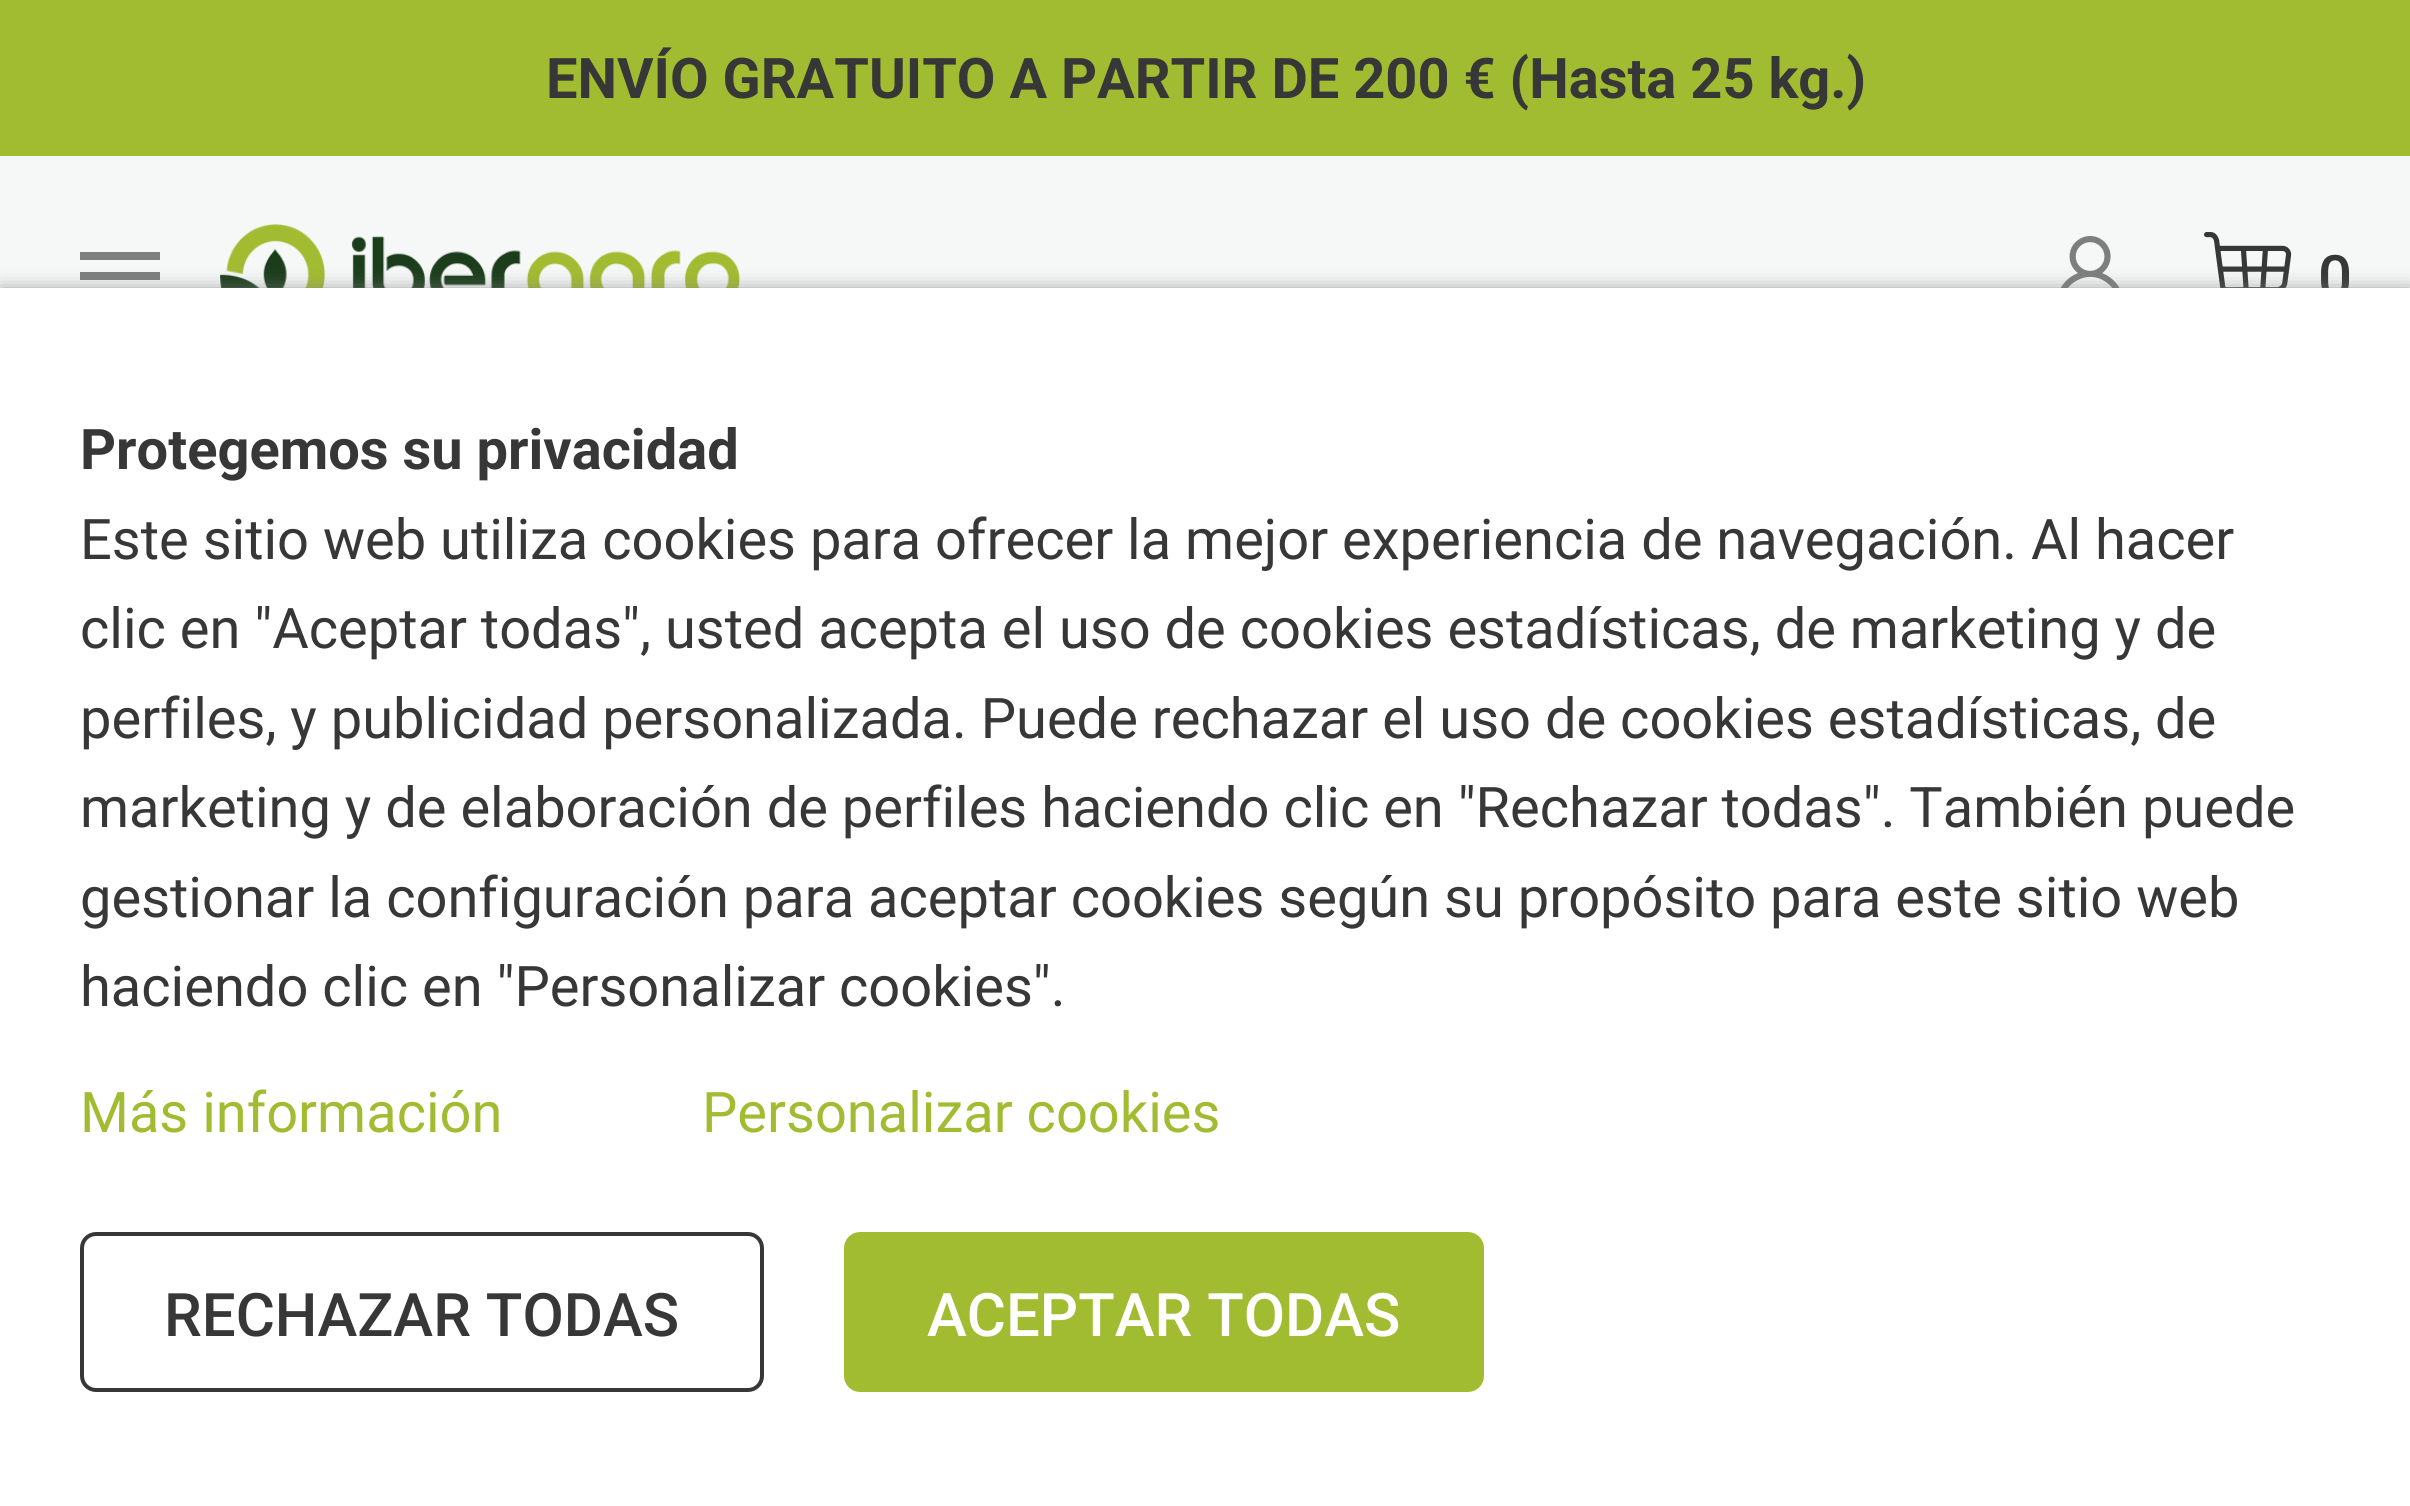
#include <cairo.h>
#include <math.h>
#include <stddef.h>


static void rgb(cairo_t *cr, int r, int g, int b)
{
	cairo_set_source_rgb(cr, r / 255.0, g / 255.0, b / 255.0);
}

static void face(cairo_t *cr, const char *family, double size, int italic, int bold)
{
	cairo_select_font_face(cr, family, italic ? CAIRO_FONT_SLANT_ITALIC : CAIRO_FONT_SLANT_NORMAL,
		bold ? CAIRO_FONT_WEIGHT_BOLD : CAIRO_FONT_WEIGHT_NORMAL);
	cairo_set_font_size(cr, size);
}

static void label(cairo_t *cr, double x, double y, const char *s)
{
	cairo_move_to(cr, x, y);
	cairo_show_text(cr, s);
}

static void rect(cairo_t *cr, double x, double y, double w, double h)
{
	cairo_rectangle(cr, x, y, w, h);
	cairo_fill(cr);
}

static void rrect(cairo_t *cr, double x, double y, double w, double h, double r)
{
	cairo_new_sub_path(cr);
	cairo_arc(cr, x + w - r, y + h - r, r, 0, M_PI / 2);
	cairo_arc(cr, x + r, y + h - r, r, M_PI / 2, M_PI);
	cairo_arc(cr, x + r, y + r, r, M_PI, 1.5 * M_PI);
	cairo_arc(cr, x + w - r, y + r, r, 1.5 * M_PI, 2 * M_PI);
	cairo_close_path(cr);
}

static void soft_shadow(cairo_t *cr, double x, double y, double w, double h, double r, double blur, double alpha)
{
	cairo_push_group_with_content(cr, CAIRO_CONTENT_ALPHA);
	cairo_set_operator(cr, CAIRO_OPERATOR_SOURCE);
	for (int i = 15; i >= -15 && fmin(w, h) + blur * i / 3 > 0; i -= 2) {
		double e = blur * i / 6;
		cairo_set_source_rgba(cr, 0, 0, 0, alpha * erfc((i - 1) / 8.5) / 2);
		rrect(cr, x - e, y - e, w + 2 * e, h + 2 * e, fmax(0, fmin(r + e + blur * .6, fmin(w, h) / 2 + e)));
		cairo_fill(cr);
	}
	cairo_pattern_t *soft = cairo_pop_group(cr);
	cairo_mask(cr, soft);
	cairo_pattern_destroy(soft);
}

static void image(cairo_t *cr, const char *path, double x, double y, double w, double h)
{
	cairo_surface_t *image = cairo_image_surface_create_from_png(path);
	cairo_save(cr);
	cairo_set_source_surface(cr, image, x, y);
	cairo_rectangle(cr, x, y, w, h);
	cairo_fill(cr);
	cairo_restore(cr);
	cairo_surface_destroy(image);
}

static void draw(cairo_t *cr) {
	rgb(cr, 161, 188, 49);
	cairo_paint(cr);
	face(cr, "Roboto", 56, 0, 1);
	rgb(cr, 55, 55, 55);
	label(cr, 546, 98, "ENVÍO GRATUITO A PARTIR DE 200 € (Hasta 25 kg.)");
	rgb(cr, 246, 248, 248);
	rect(cr, 0, 156, 2410, 132);
	rgb(cr, 126, 126, 126);
	rect(cr, 80, 272, 80, 8);
	rect(cr, 80, 252, 80, 8);
	image(cr, "image0.png", 220, 224, 520, 64);
	image(cr, "image1.png", 2060, 236, 60, 52);
	image(cr, "image2.png", 2204, 232, 88, 56);
	face(cr, "Roboto Medium", 60, 0, 0);
	rgb(cr, 55, 55, 55);
	label(cr, 2318, 298, "0");
	rgb(cr, 126, 126, 126);
	soft_shadow(cr, 0, 292, 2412, 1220, 0, 10, 1);
	rgb(cr, 255, 255, 255);
	rect(cr, 0, 288, 2410, 1218);
	face(cr, "Roboto", 56, 0, 1);
	rgb(cr, 55, 55, 55);
	label(cr, 80, 469, "Protegemos su privacidad");
	face(cr, "Roboto", 56, 0, 0);
	label(cr, 80, 559, "Este sitio web utiliza cookies para ofrecer la mejor experiencia de navegación. Al hacer");
	label(cr, 80, 648, "clic en \"Aceptar todas\", usted acepta el uso de cookies estadísticas, de marketing y de");
	label(cr, 80, 738, "perfiles, y publicidad personalizada. Puede rechazar el uso de cookies estadísticas, de");
	label(cr, 80, 827, "marketing y de elaboración de perfiles haciendo clic en \"Rechazar todas\". También puede");
	label(cr, 80, 917, "gestionar la configuración para aceptar cookies según su propósito para este sitio web");
	label(cr, 80, 1006, "haciendo clic en \"Personalizar cookies\".");
	rgb(cr, 161, 188, 49);
	label(cr, 80, 1132, "Más información");
	label(cr, 702, 1132, "Personalizar cookies");
	rrect(cr, 82, 1234, 680, 156, 14);
	rgb(cr, 55, 55, 55);
	cairo_set_line_width(cr, 4);
	cairo_stroke(cr);
	face(cr, "Roboto Medium", 60, 0, 0);
	label(cr, 164, 1336, "RECHAZAR TODAS");
	rgb(cr, 161, 188, 49);
	rrect(cr, 846, 1234, 636, 156, 14);
	cairo_fill_preserve(cr);
	cairo_stroke(cr);
	rgb(cr, 255, 255, 255);
	label(cr, 927, 1336, "ACEPTAR TODAS");
}

int main(void) {
	cairo_surface_t *surface = cairo_image_surface_create(CAIRO_FORMAT_RGB24, 2410, 1506);
	cairo_t *cr = cairo_create(surface);
	cairo_font_options_t *options = cairo_font_options_create();
	cairo_font_options_set_hint_metrics(options, CAIRO_HINT_METRICS_OFF);
	cairo_font_options_set_hint_style(options, CAIRO_HINT_STYLE_NONE);
	cairo_set_font_options(cr, options);
	cairo_set_miter_limit(cr, 4);
	draw(cr);
	cairo_surface_write_to_png(surface, "render.png");
	cairo_font_options_destroy(options);
	cairo_destroy(cr);
	cairo_surface_destroy(surface);
	return 0;
}
